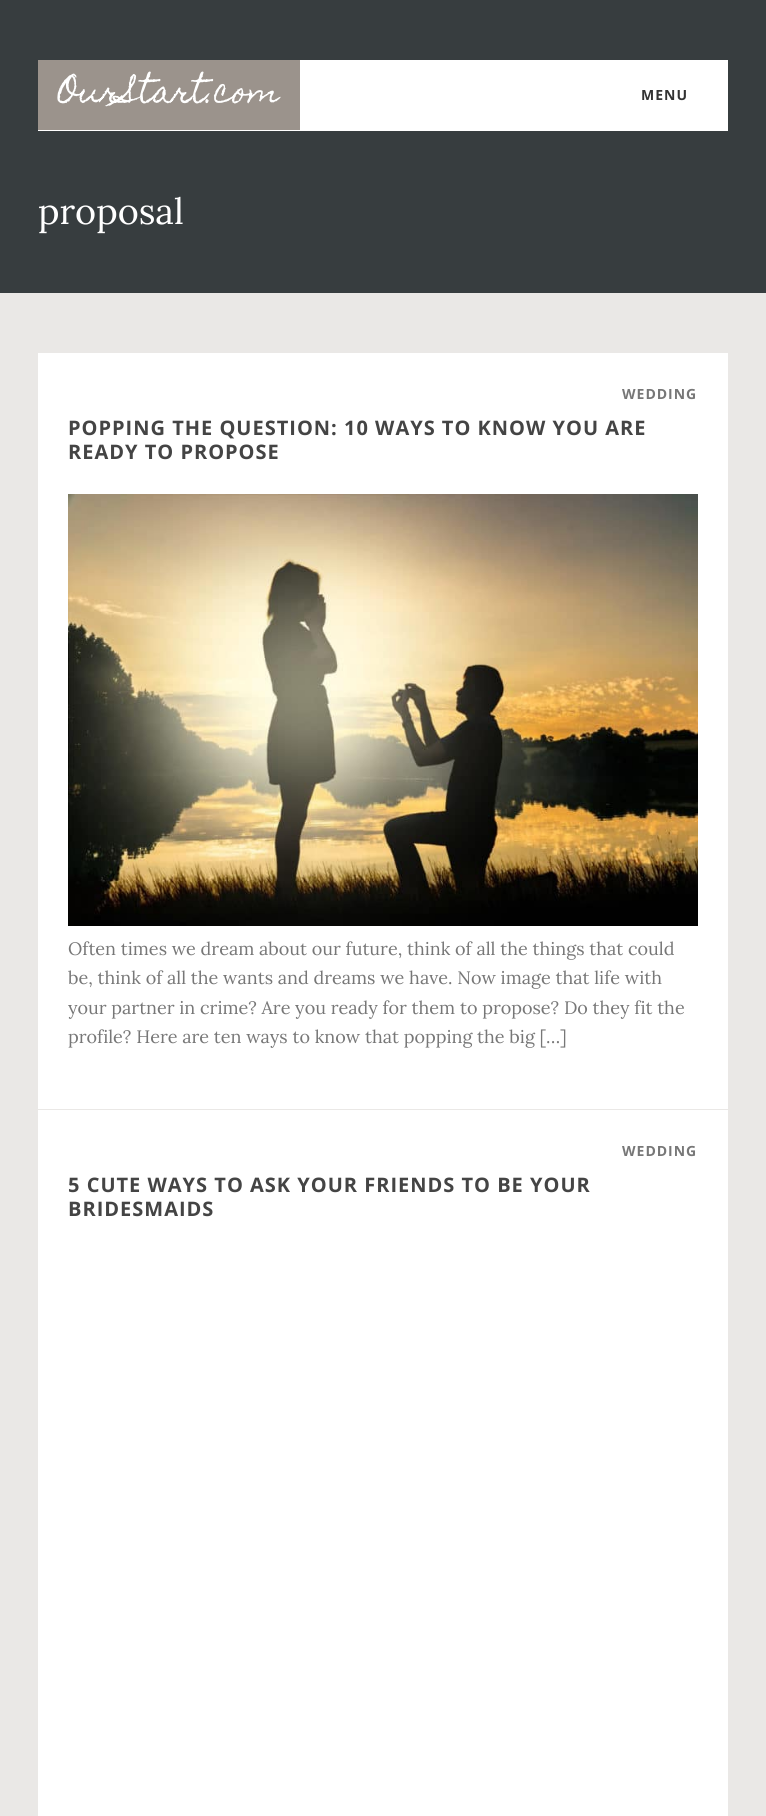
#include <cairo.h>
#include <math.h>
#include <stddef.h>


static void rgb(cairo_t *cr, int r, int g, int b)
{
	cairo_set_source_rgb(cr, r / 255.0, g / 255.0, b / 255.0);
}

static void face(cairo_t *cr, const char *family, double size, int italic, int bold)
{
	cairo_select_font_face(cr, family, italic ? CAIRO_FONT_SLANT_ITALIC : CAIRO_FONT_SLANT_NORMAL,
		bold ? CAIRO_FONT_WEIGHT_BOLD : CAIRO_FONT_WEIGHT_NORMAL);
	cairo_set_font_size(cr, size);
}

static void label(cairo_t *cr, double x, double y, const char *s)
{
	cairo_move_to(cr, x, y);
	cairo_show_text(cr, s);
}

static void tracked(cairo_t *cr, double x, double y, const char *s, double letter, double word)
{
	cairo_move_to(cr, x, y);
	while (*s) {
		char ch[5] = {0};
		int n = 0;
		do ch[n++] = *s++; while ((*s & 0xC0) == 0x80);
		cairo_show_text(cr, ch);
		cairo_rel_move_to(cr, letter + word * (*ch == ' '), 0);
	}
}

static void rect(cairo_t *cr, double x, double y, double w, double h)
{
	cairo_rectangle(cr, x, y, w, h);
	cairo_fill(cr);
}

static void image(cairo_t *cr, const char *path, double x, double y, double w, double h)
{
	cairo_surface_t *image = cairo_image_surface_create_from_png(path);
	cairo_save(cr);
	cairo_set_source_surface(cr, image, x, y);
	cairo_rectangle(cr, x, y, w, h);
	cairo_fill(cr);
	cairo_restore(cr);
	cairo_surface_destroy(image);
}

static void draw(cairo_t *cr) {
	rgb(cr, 234, 232, 230);
	cairo_paint(cr);
	rgb(cr, 55, 61, 63);
	rect(cr, 0, 0, 766, 293);
	rgb(cr, 255, 255, 255);
	rect(cr, 38, 60, 690, 71);
	rgb(cr, 155, 147, 140);
	rect(cr, 38, 60, 262, 70);
	face(cr, "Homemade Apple", 30, 0, 0);
	rgb(cr, 255, 255, 255);
	label(cr, 58, 102, "OurStart.com");
	face(cr, "Open Sans", 14, 0, 1);
	rgb(cr, 51, 51, 51);
	tracked(cr, 641, 100, "MENU", 1, 0);
	face(cr, "Lora", 36, 0, 0);
	rgb(cr, 255, 255, 255);
	label(cr, 38, 224, "proposal");
	rect(cr, 38, 353, 690, 756);
	face(cr, "Open Sans", 14, 0, 1);
	rgb(cr, 119, 119, 119);
	tracked(cr, 622, 399, "WEDDING", 1, 0);
	face(cr, "Open Sans", 20, 0, 1);
	rgb(cr, 68, 68, 68);
	tracked(cr, 68, 435, "POPPING THE QUESTION: 10 WAYS TO KNOW YOU ARE", 1, 0);
	tracked(cr, 68, 459, "READY TO PROPOSE", 1, 0);
	image(cr, "image0.png", 68, 494, 630, 432);
	face(cr, "Lora", 18, 0, 0);
	rgb(cr, 119, 119, 119);
	label(cr, 68, 955, "Often times we dream about our future, think of all the things that could");
	label(cr, 68, 984, "be, think of all the wants and dreams we have. Now image that life with");
	label(cr, 68, 1014, "your partner in crime? Are you ready for them to propose? Do they fit the");
	label(cr, 68, 1043, "profile? Here are ten ways to know that popping the big […]");
	rgb(cr, 255, 255, 255);
	rect(cr, 38, 1110, 690, 706);
	face(cr, "Open Sans", 14, 0, 1);
	rgb(cr, 119, 119, 119);
	tracked(cr, 622, 1156, "WEDDING", 1, 0);
	face(cr, "Open Sans", 20, 0, 1);
	rgb(cr, 68, 68, 68);
	tracked(cr, 68, 1192, "5 CUTE WAYS TO ASK YOUR FRIENDS TO BE YOUR", 1, 0);
	tracked(cr, 68, 1216, "BRIDESMAIDS", 1, 0);
}

int main(void) {
	cairo_surface_t *surface = cairo_image_surface_create(CAIRO_FORMAT_RGB24, 766, 1816);
	cairo_t *cr = cairo_create(surface);
	cairo_font_options_t *options = cairo_font_options_create();
	cairo_font_options_set_hint_metrics(options, CAIRO_HINT_METRICS_OFF);
	cairo_font_options_set_hint_style(options, CAIRO_HINT_STYLE_NONE);
	cairo_set_font_options(cr, options);
	cairo_set_miter_limit(cr, 4);
	draw(cr);
	cairo_surface_write_to_png(surface, "render.png");
	cairo_font_options_destroy(options);
	cairo_destroy(cr);
	cairo_surface_destroy(surface);
	return 0;
}
